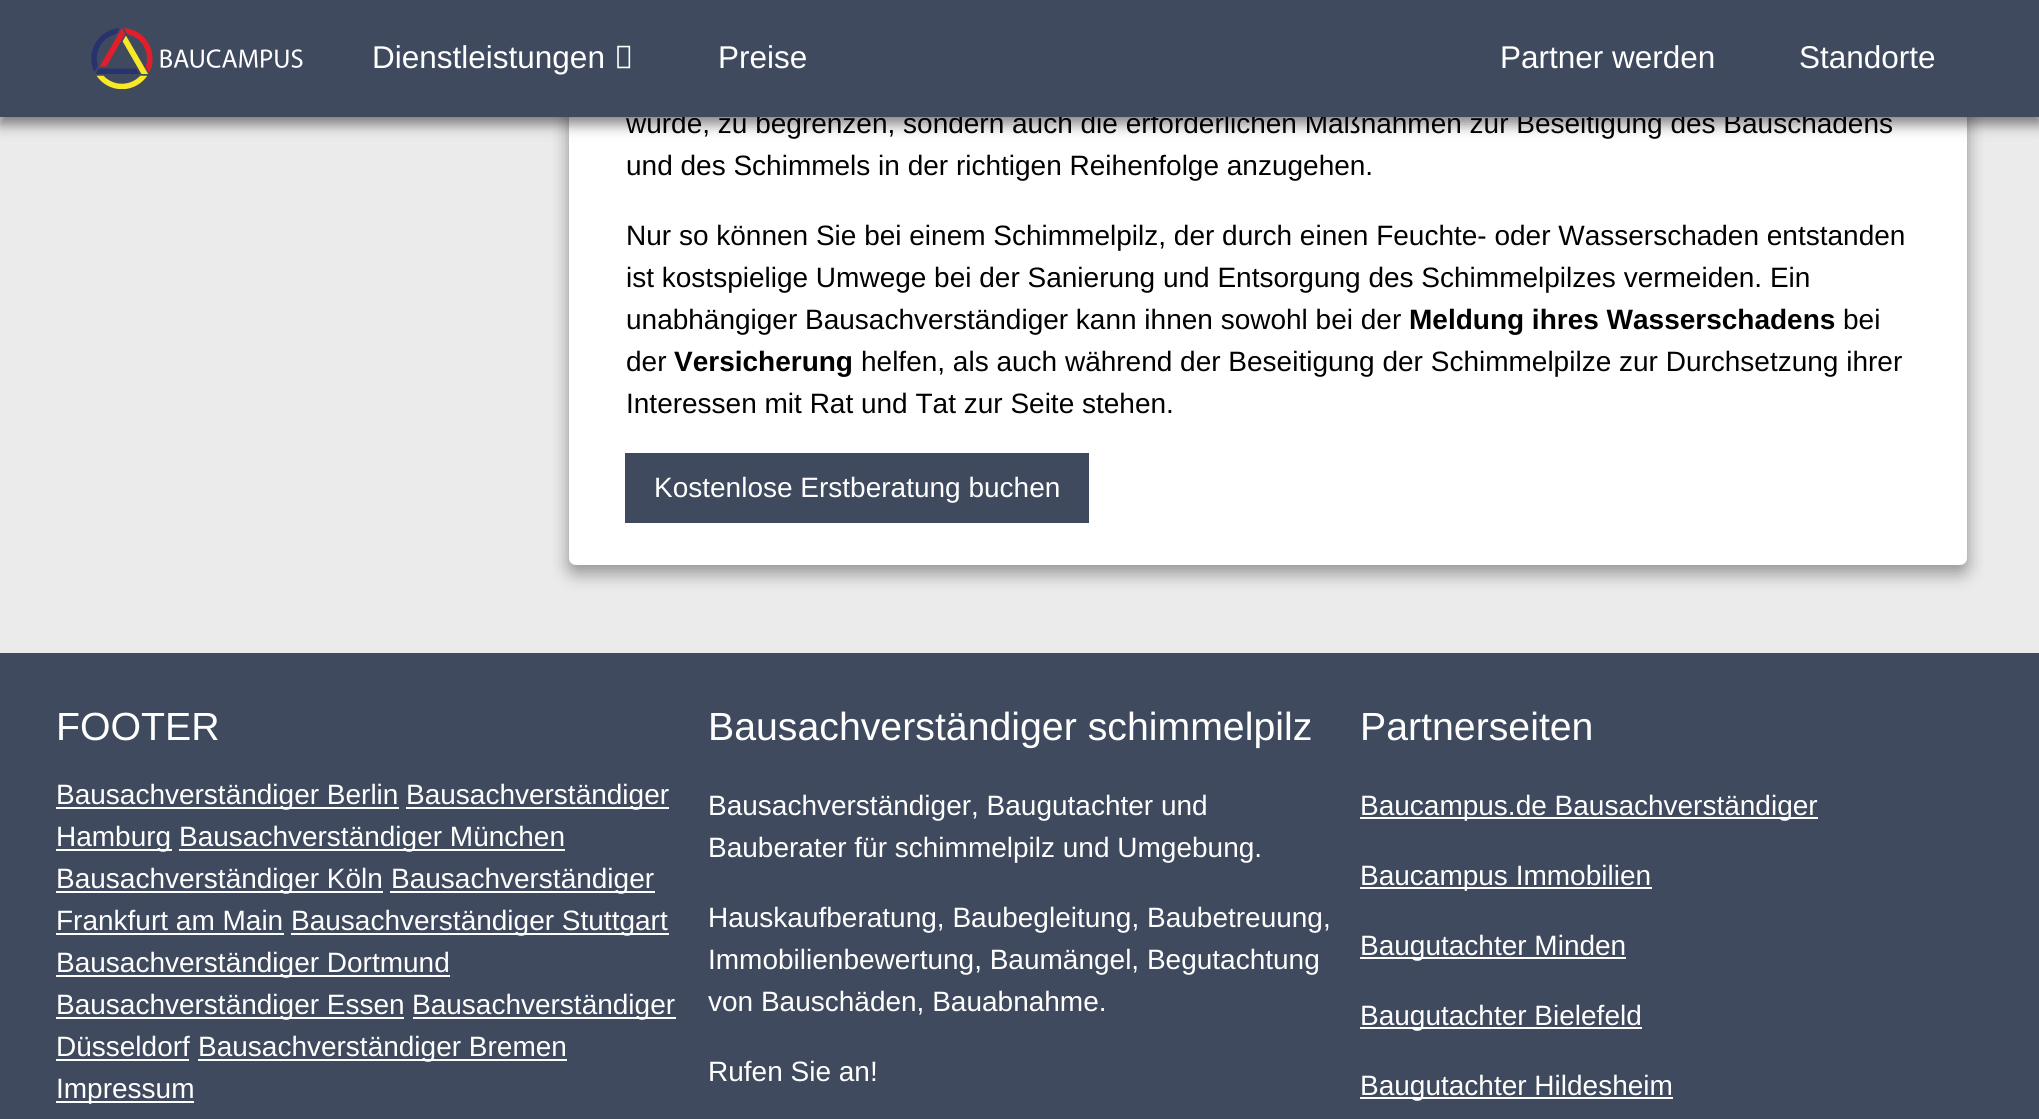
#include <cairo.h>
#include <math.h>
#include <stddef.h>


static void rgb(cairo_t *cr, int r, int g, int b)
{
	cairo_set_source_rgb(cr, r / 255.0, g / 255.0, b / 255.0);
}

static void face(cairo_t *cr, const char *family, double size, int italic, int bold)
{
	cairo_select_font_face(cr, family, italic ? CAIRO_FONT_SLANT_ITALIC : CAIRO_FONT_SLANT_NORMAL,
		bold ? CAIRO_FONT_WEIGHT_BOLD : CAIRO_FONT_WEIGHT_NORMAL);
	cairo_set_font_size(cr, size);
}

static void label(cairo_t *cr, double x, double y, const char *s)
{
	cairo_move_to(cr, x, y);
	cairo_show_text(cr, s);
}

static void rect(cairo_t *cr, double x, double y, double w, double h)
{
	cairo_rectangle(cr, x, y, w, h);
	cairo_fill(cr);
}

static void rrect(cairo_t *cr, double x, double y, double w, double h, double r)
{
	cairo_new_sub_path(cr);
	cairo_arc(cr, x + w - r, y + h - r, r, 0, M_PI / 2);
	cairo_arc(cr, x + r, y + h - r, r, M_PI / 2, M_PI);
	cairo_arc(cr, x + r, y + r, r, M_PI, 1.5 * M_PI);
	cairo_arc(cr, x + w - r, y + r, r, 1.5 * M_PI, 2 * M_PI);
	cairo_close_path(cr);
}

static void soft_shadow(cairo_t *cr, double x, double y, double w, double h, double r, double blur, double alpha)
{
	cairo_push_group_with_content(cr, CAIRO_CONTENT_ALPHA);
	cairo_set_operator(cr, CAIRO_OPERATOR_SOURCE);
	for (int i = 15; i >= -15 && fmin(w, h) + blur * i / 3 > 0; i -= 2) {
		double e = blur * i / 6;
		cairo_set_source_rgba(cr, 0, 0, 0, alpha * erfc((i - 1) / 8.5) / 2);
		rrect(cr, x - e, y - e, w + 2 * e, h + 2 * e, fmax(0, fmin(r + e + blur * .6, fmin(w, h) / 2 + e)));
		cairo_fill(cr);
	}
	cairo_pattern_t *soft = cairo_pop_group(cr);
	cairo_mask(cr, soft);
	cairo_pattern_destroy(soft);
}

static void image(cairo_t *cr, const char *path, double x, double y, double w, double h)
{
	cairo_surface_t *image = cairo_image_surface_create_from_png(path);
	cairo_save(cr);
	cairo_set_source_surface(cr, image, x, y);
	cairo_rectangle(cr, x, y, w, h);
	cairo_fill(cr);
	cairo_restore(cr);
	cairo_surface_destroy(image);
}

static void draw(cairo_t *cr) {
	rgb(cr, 235, 235, 235);
	cairo_paint(cr);
	rgb(cr, 0, 0, 0);
	soft_shadow(cr, 569, -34, 1398, 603, 7, 9, 0.12);
	soft_shadow(cr, 569, -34, 1398, 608, 7, 9, 0.3);
	rgb(cr, 255, 255, 255);
	rrect(cr, 569, -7, 1398, 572, 7);
	cairo_fill(cr);
	rgb(cr, 0, 0, 0);
	soft_shadow(cr, 0, 7, 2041, 117, 0, 7, 0.5);
	face(cr, "Liberation Sans", 28, 0, 0);
	rgb(cr, 0, 0, 0);
	label(cr, 626, 133, "wurde, zu begrenzen, sondern auch die erforderlichen Maßnahmen zur Beseitigung des Bauschadens");
	rgb(cr, 63, 74, 94);
	rect(cr, 0, 0, 2039, 117);
	image(cr, "image0.png", 91, 28, 212, 61);
	face(cr, "Liberation Sans", 31.5, 0, 0);
	rgb(cr, 255, 255, 255);
	label(cr, 372, 68, "Dienstleistungen");
	image(cr, "image1.png", 617, 45, 14, 24);
	label(cr, 718, 68, "Preise");
	label(cr, 1500, 68, "Partner werden");
	label(cr, 1799, 68, "Standorte");
	face(cr, "Liberation Sans", 28, 0, 0);
	rgb(cr, 0, 0, 0);
	label(cr, 626, 175, "und des Schimmels in der richtigen Reihenfolge anzugehen.");
	label(cr, 626, 245, "Nur so können Sie bei einem Schimmelpilz, der durch einen Feuchte- oder Wasserschaden entstanden");
	label(cr, 626, 287, "ist kostspielige Umwege bei der Sanierung und Entsorgung des Schimmelpilzes vermeiden. Ein");
	label(cr, 626, 329, "unabhängiger Bausachverständiger kann ihnen sowohl bei der");
	face(cr, "Liberation Sans", 28, 0, 1);
	label(cr, 1409, 329, "Meldung ihres Wasserschadens");
	face(cr, "Liberation Sans", 28, 0, 0);
	label(cr, 1843, 329, "bei");
	label(cr, 626, 371, "der");
	face(cr, "Liberation Sans", 28, 0, 1);
	label(cr, 674, 371, "Versicherung");
	face(cr, "Liberation Sans", 28, 0, 0);
	label(cr, 861, 371, "helfen, als auch während der Beseitigung der Schimmelpilze zur Durchsetzung ihrer");
	label(cr, 626, 413, "Interessen mit Rat und Tat zur Seite stehen.");
	rgb(cr, 63, 74, 94);
	rect(cr, 625, 453, 464, 70);
	rgb(cr, 255, 255, 255);
	label(cr, 654, 497, "Kostenlose Erstberatung buchen");
	rgb(cr, 63, 74, 94);
	rect(cr, 0, 653, 2039, 466);
	face(cr, "Liberation Sans", 39.25, 0, 0);
	rgb(cr, 255, 255, 255);
	label(cr, 56, 740, "FOOTER");
	rect(cr, 56, 807, 343, 2);
	face(cr, "Liberation Sans", 28, 0, 0);
	label(cr, 56, 804, "Bausachverständiger Berlin");
	rect(cr, 406, 807, 263, 2);
	label(cr, 406, 804, "Bausachverständiger");
	rect(cr, 56, 849, 116, 2);
	label(cr, 56, 846, "Hamburg");
	rect(cr, 179, 849, 386, 2);
	label(cr, 179, 846, "Bausachverständiger München");
	rect(cr, 56, 891, 327, 2);
	label(cr, 56, 888, "Bausachverständiger Köln");
	rect(cr, 390, 891, 265, 2);
	label(cr, 391, 888, "Bausachverständiger");
	label(cr, 56, 930, "Frankfurt am Main");
	rect(cr, 56, 933, 228, 2);
	rect(cr, 291, 933, 378, 2);
	label(cr, 291, 930, "Bausachverständiger Stuttgart");
	rect(cr, 56, 975, 394, 2);
	label(cr, 56, 972, "Bausachverständiger Dortmund");
	rect(cr, 56, 1017, 348, 2);
	label(cr, 56, 1014, "Bausachverständiger Essen");
	rect(cr, 413, 1017, 263, 2);
	label(cr, 412, 1014, "Bausachverständiger");
	label(cr, 56, 1056, "Düsseldorf");
	rect(cr, 56, 1059, 133, 2);
	rect(cr, 198, 1059, 369, 2);
	label(cr, 198, 1056, "Bausachverständiger Bremen");
	rect(cr, 56, 1101, 138, 2);
	label(cr, 56, 1098, "Impressum");
	face(cr, "Liberation Sans", 39.25, 0, 0);
	label(cr, 708, 740, "Bausachverständiger schimmelpilz");
	face(cr, "Liberation Sans", 28, 0, 0);
	label(cr, 708, 815, "Bausachverständiger, Baugutachter und");
	label(cr, 708, 857, "Bauberater für schimmelpilz und Umgebung.");
	label(cr, 708, 927, "Hauskaufberatung, Baubegleitung, Baubetreuung,");
	label(cr, 708, 969, "Immobilienbewertung, Baumängel, Begutachtung");
	label(cr, 708, 1011, "von Bauschäden, Bauabnahme.");
	label(cr, 708, 1081, "Rufen Sie an!");
	face(cr, "Liberation Sans", 39.25, 0, 0);
	label(cr, 1360, 740, "Partnerseiten");
	rect(cr, 1360, 817, 458, 2);
	face(cr, "Liberation Sans", 28, 0, 0);
	label(cr, 1360, 815, "Baucampus.de Bausachverständiger");
	rect(cr, 1360, 887, 292, 2);
	label(cr, 1360, 885, "Baucampus Immobilien");
	rect(cr, 1360, 957, 266, 2);
	label(cr, 1360, 955, "Baugutachter Minden");
	rect(cr, 1360, 1027, 282, 2);
	label(cr, 1360, 1025, "Baugutachter Bielefeld");
	rect(cr, 1360, 1097, 313, 2);
	label(cr, 1360, 1095, "Baugutachter Hildesheim");
}

int main(void) {
	cairo_surface_t *surface = cairo_image_surface_create(CAIRO_FORMAT_RGB24, 2039, 1119);
	cairo_t *cr = cairo_create(surface);
	cairo_font_options_t *options = cairo_font_options_create();
	cairo_font_options_set_hint_metrics(options, CAIRO_HINT_METRICS_OFF);
	cairo_font_options_set_hint_style(options, CAIRO_HINT_STYLE_NONE);
	cairo_set_font_options(cr, options);
	cairo_set_miter_limit(cr, 4);
	draw(cr);
	cairo_surface_write_to_png(surface, "render.png");
	cairo_font_options_destroy(options);
	cairo_destroy(cr);
	cairo_surface_destroy(surface);
	return 0;
}
